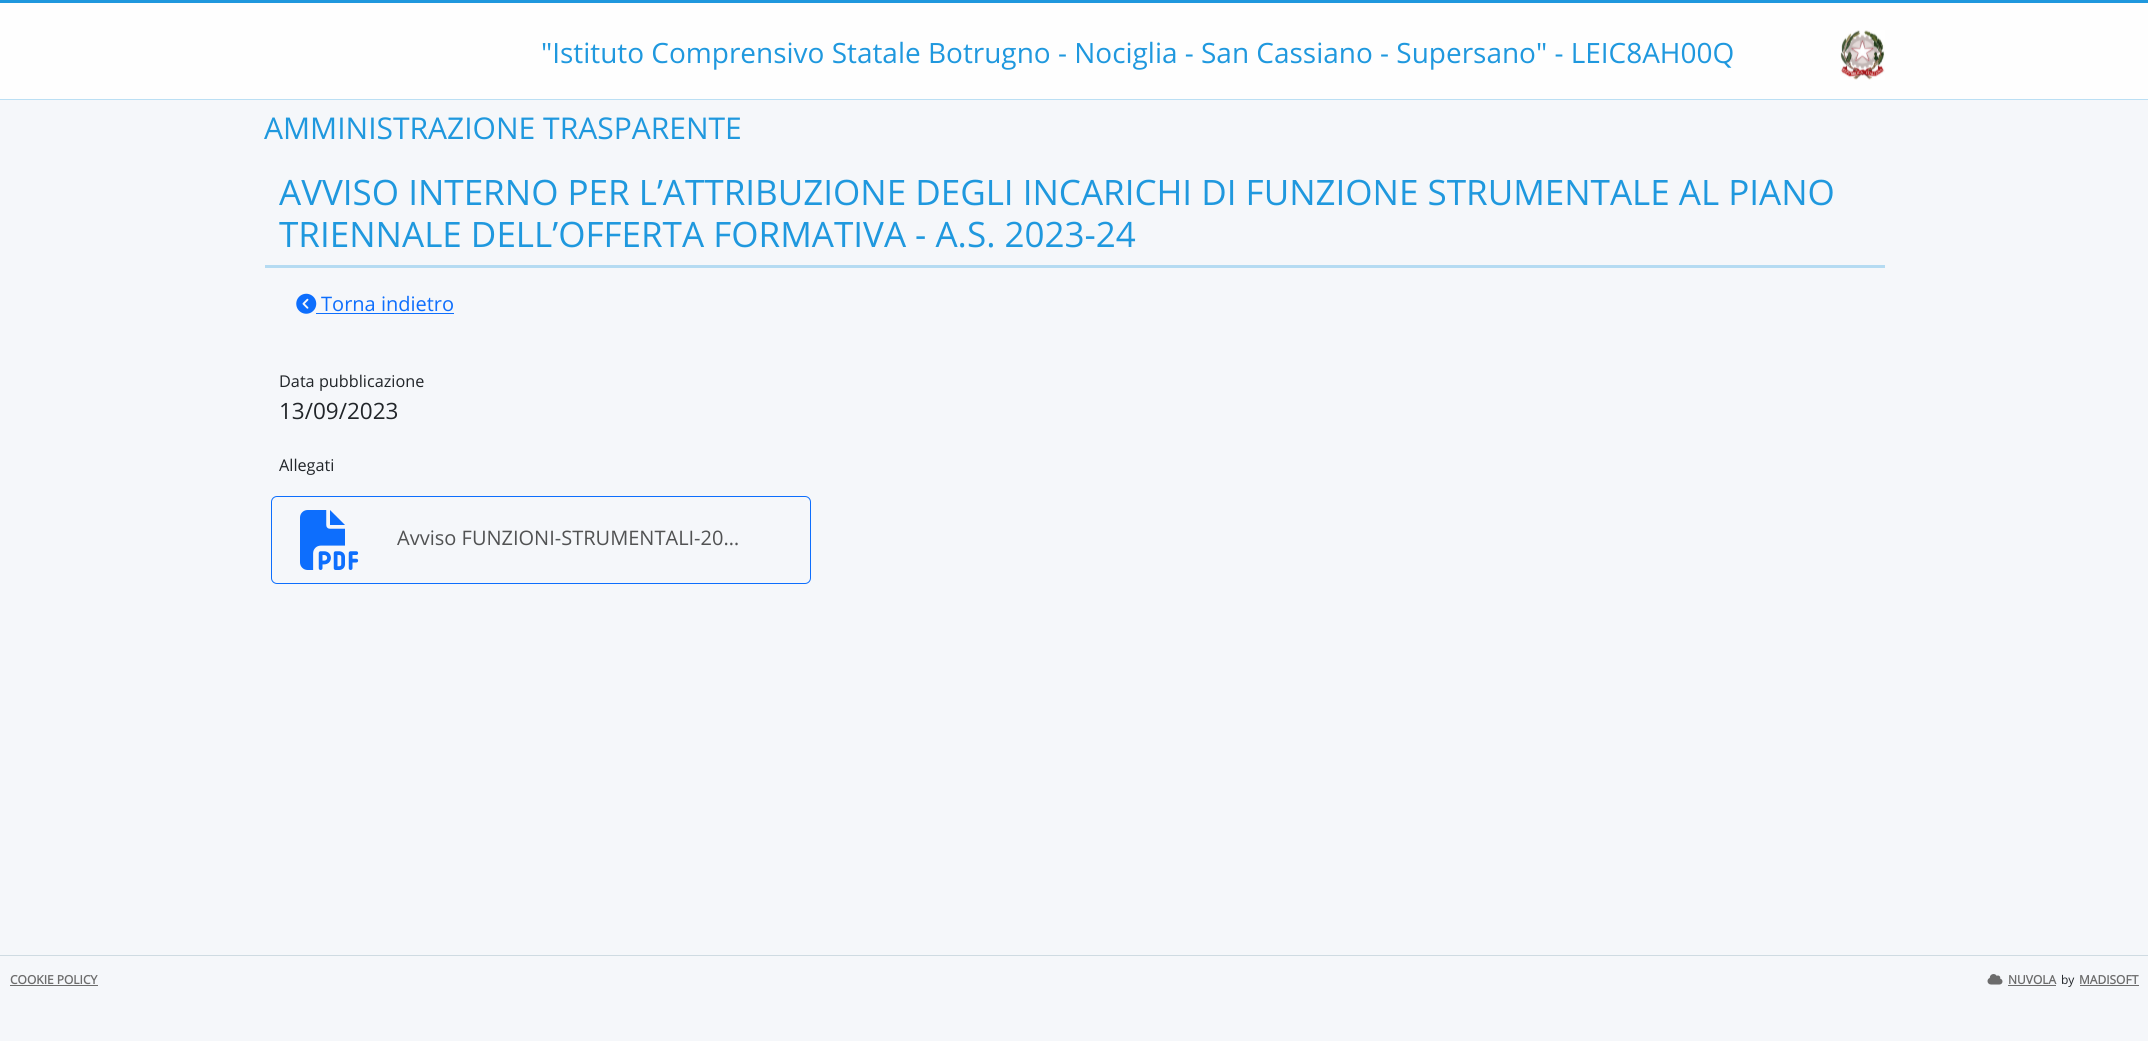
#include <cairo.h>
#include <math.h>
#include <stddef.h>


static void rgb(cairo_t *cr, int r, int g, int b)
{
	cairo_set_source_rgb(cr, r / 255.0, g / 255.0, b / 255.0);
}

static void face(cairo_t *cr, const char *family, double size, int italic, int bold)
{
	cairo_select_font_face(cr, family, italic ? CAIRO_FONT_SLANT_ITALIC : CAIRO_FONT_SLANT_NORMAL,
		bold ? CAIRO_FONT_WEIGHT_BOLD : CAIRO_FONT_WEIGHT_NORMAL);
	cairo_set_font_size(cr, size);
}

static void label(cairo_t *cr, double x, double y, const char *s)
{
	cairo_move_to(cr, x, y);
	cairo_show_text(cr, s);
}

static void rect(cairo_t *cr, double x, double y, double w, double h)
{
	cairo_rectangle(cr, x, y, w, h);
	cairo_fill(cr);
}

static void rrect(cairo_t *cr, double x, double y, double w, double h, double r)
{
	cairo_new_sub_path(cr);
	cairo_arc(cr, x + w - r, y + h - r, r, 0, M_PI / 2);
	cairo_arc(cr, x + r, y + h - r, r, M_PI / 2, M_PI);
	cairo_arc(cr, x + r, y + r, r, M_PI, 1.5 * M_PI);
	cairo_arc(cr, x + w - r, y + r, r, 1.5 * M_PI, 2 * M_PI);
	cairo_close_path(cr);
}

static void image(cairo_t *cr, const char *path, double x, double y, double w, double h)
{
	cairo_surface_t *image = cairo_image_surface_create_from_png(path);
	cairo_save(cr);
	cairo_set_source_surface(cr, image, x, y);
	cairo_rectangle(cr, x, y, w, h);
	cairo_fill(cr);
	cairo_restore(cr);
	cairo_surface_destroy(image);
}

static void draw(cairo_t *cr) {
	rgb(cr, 245, 247, 250);
	cairo_paint(cr);
	rgb(cr, 254, 254, 254);
	rect(cr, 0, 3, 2148, 96);
	rgb(cr, 31, 152, 222);
	rect(cr, 0, 0, 2148, 3);
	rgb(cr, 187, 223, 244);
	rect(cr, 0, 99, 2148, 1);
	face(cr, "Open Sans", 27.95, 0, 0);
	rgb(cr, 31, 152, 222);
	label(cr, 541, 63, "\"Istituto Comprensivo Statale Botrugno - Nociglia - San Cassiano - Supersano\" - LEIC8AH00Q");
	image(cr, "image0.png", 1840, 30, 45, 50);
	face(cr, "Open Sans", 30, 0, 0);
	label(cr, 264, 139, "AMMINISTRAZIONE TRASPARENTE");
	rgb(cr, 181, 219, 242);
	rect(cr, 265, 265, 1620, 3);
	face(cr, "Open Sans", 35, 0, 0);
	rgb(cr, 31, 152, 222);
	label(cr, 279, 205, "AVVISO INTERNO PER L’ATTRIBUZIONE DEGLI INCARICHI DI FUNZIONE STRUMENTALE AL PIANO");
	label(cr, 279, 247, "TRIENNALE DELL’OFFERTA FORMATIVA - A.S. 2023-24");
	image(cr, "image1.png", 296, 293, 21, 21);
	face(cr, "Open Sans", 20, 0, 0);
	rgb(cr, 13, 110, 253);
	label(cr, 321, 311, "Torna indietro");
	rect(cr, 316, 313, 138, 1);
	face(cr, "Open Sans", 16.25, 0, 0);
	rgb(cr, 33, 37, 41);
	label(cr, 279, 387, "Data pubblicazione");
	face(cr, "Open Sans", 22.5, 0, 0);
	label(cr, 279, 419, "13/09/2023");
	face(cr, "Open Sans", 16.25, 0, 0);
	label(cr, 279, 471, "Allegati");
	rrect(cr, 271.5, 496.5, 539, 87, 5.5);
	rgb(cr, 13, 110, 253);
	cairo_set_line_width(cr, 1);
	cairo_stroke(cr);
	image(cr, "image2.png", 300, 510, 59, 60);
	face(cr, "Open Sans", 20, 0, 0);
	rgb(cr, 81, 82, 83);
	label(cr, 397, 545, "Avviso FUNZIONI-STRUMENTALI-20…");
	rgb(cr, 207, 219, 226);
	rect(cr, 0, 955, 2148, 1);
	face(cr, "Open Sans", 12, 0, 1);
	rgb(cr, 108, 108, 108);
	label(cr, 10, 984, "COOKIE POLICY");
	rect(cr, 10, 985, 88, 1);
	image(cr, "image3.png", 1987, 974, 16, 11);
	label(cr, 2008, 984, "NUVOLA");
	rect(cr, 2008, 985, 48, 1);
	face(cr, "Open Sans", 12, 0, 0);
	rgb(cr, 33, 37, 41);
	label(cr, 2061, 984, "by");
	face(cr, "Open Sans", 12, 0, 1);
	rgb(cr, 108, 108, 108);
	label(cr, 2079, 984, "MADISOFT");
	rect(cr, 2080, 985, 59, 1);
}

int main(void) {
	cairo_surface_t *surface = cairo_image_surface_create(CAIRO_FORMAT_RGB24, 2148, 1041);
	cairo_t *cr = cairo_create(surface);
	cairo_font_options_t *options = cairo_font_options_create();
	cairo_font_options_set_hint_metrics(options, CAIRO_HINT_METRICS_OFF);
	cairo_font_options_set_hint_style(options, CAIRO_HINT_STYLE_NONE);
	cairo_set_font_options(cr, options);
	cairo_set_miter_limit(cr, 4);
	draw(cr);
	cairo_surface_write_to_png(surface, "render.png");
	cairo_font_options_destroy(options);
	cairo_destroy(cr);
	cairo_surface_destroy(surface);
	return 0;
}
